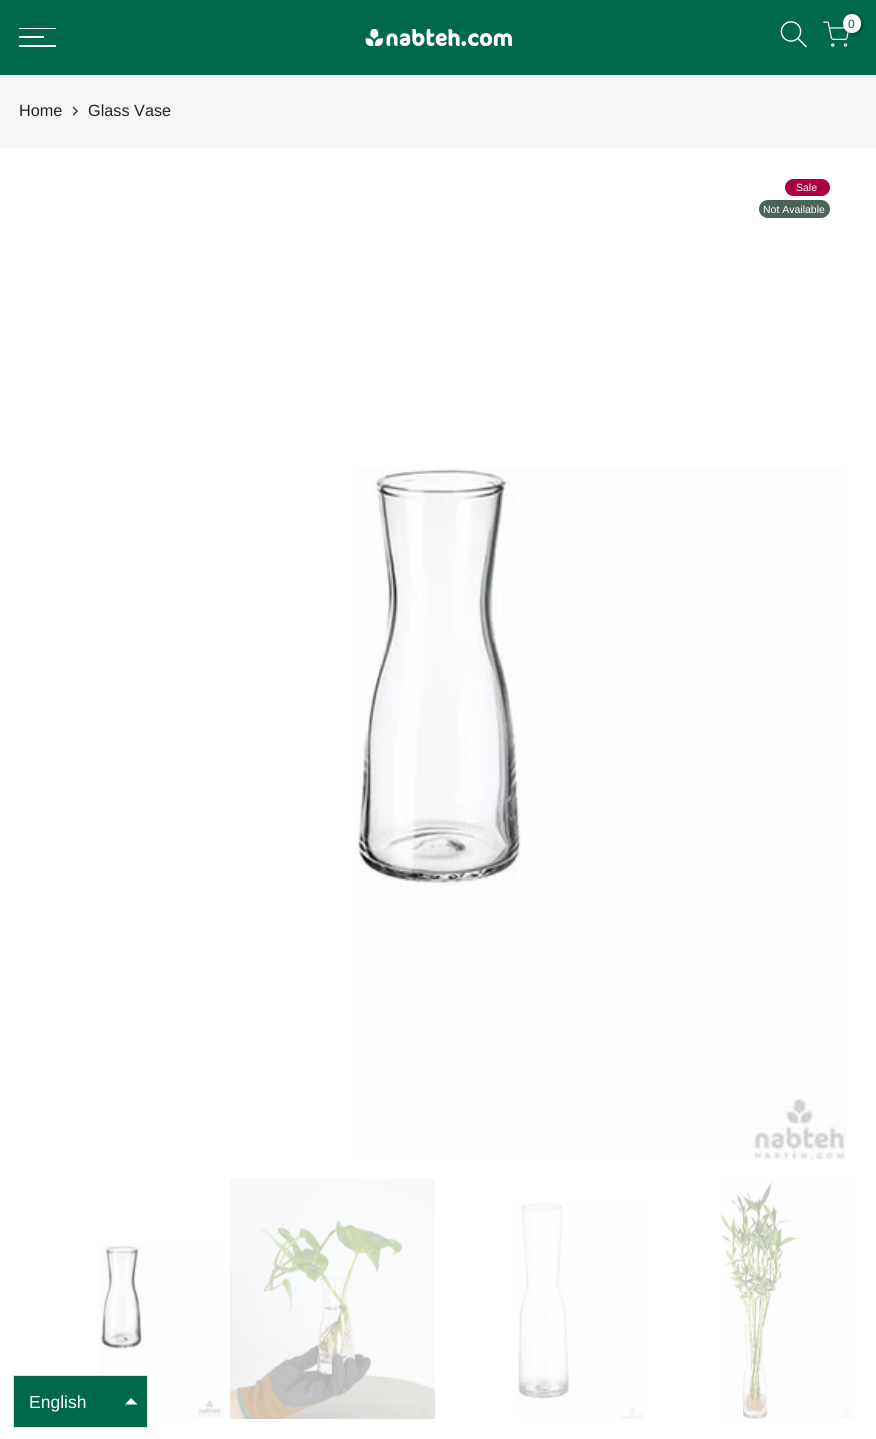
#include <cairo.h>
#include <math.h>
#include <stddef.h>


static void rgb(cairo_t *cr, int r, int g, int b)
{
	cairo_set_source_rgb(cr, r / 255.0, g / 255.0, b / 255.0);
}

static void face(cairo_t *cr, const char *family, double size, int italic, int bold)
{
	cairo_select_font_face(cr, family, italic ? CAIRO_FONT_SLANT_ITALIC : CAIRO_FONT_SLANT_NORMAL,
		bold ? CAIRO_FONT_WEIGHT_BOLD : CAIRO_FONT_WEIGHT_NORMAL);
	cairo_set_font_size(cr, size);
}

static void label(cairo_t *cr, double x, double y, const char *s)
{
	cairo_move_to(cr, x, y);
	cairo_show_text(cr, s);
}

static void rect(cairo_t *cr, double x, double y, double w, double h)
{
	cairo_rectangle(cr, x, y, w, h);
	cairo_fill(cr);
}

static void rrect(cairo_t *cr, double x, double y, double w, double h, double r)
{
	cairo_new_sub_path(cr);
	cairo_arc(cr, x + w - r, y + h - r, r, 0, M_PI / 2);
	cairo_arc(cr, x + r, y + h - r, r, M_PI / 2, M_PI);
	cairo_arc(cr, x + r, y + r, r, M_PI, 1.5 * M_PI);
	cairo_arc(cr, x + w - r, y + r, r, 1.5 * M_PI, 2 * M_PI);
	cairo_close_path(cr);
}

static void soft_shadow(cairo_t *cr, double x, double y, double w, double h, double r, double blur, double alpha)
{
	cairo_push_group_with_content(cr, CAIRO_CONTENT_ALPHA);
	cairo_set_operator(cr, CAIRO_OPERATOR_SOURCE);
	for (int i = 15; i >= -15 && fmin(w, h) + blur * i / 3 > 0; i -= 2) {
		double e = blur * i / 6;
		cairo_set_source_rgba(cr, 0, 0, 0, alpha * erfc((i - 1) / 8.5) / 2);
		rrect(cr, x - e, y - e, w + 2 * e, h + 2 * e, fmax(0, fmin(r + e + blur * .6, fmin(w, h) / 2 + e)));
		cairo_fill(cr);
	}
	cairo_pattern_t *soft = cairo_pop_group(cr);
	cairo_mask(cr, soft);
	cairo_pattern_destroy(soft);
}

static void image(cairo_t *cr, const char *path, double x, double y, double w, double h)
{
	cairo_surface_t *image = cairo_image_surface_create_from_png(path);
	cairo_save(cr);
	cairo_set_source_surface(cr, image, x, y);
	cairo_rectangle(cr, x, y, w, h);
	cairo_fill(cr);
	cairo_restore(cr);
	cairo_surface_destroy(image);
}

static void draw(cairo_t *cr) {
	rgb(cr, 255, 255, 255);
	cairo_paint(cr);
	rgb(cr, 0, 105, 75);
	rect(cr, 0, 0, 876, 75);
	image(cr, "image0.png", 780, 21, 27, 27);
	image(cr, "image1.png", 823, 21, 26, 26);
	rgb(cr, 0, 0, 0);
	soft_shadow(cr, 844, 15, 19, 19, 9.5, 2, 0.3);
	rgb(cr, 255, 255, 255);
	rrect(cr, 843, 14, 18, 19, 9);
	cairo_fill(cr);
	face(cr, "Liberation Sans", 12, 0, 0);
	rgb(cr, 0, 105, 75);
	label(cr, 848, 28, "0");
	rgb(cr, 255, 255, 255);
	rect(cr, 19, 28, 37, 1);
	rect(cr, 19, 36, 25, 2);
	rect(cr, 19, 45, 37, 2);
	image(cr, "image2.png", 365, 29, 147, 17);
	rgb(cr, 246, 246, 248);
	rect(cr, 0, 75, 876, 73);
	face(cr, "Liberation Sans", 16.25, 0, 0);
	rgb(cr, 34, 34, 34);
	label(cr, 19, 116, "Home");
	image(cr, "image3.png", 72, 106, 6, 10);
	label(cr, 88, 116, "Glass Vase");
	rgb(cr, 171, 0, 65);
	rrect(cr, 785, 179, 45, 17, 8.5);
	cairo_fill(cr);
	face(cr, "Liberation Sans", 10.5, 0, 0);
	rgb(cr, 255, 255, 255);
	label(cr, 796, 191, "Sale");
	rgb(cr, 76, 99, 88);
	rrect(cr, 759, 200, 71, 18, 9);
	cairo_fill(cr);
	rgb(cr, 255, 255, 255);
	label(cr, 763, 213, "Not Available");
	image(cr, "image4.png", 354, 468, 492, 692);
	image(cr, "image5.png", 100, 1245, 124, 173);
	image(cr, "image6.png", 230, 1179, 205, 240);
	image(cr, "image7.png", 518, 1203, 125, 216);
	image(cr, "image8.png", 720, 1179, 135, 240);
	rgb(cr, 0, 105, 75);
	cairo_rectangle(cr, 13.5, 1375.5, 134, 52);
	cairo_fill_preserve(cr);
	rgb(cr, 224, 224, 224);
	cairo_set_line_width(cr, 1);
	cairo_stroke(cr);
	face(cr, "Liberation Sans", 17.5, 0, 0);
	rgb(cr, 255, 255, 255);
	label(cr, 29, 1408, "English");
	cairo_set_fill_rule(cr, CAIRO_FILL_RULE_EVEN_ODD);
	cairo_new_path(cr);
	cairo_move_to(cr, 125, 1404.5);
	cairo_line_to(cr, 131, 1398);
	cairo_line_to(cr, 137.5, 1404.5);
	cairo_close_path(cr);
	cairo_fill(cr);
}

int main(void) {
	cairo_surface_t *surface = cairo_image_surface_create(CAIRO_FORMAT_RGB24, 876, 1439);
	cairo_t *cr = cairo_create(surface);
	cairo_font_options_t *options = cairo_font_options_create();
	cairo_font_options_set_hint_metrics(options, CAIRO_HINT_METRICS_OFF);
	cairo_font_options_set_hint_style(options, CAIRO_HINT_STYLE_NONE);
	cairo_set_font_options(cr, options);
	cairo_set_miter_limit(cr, 4);
	draw(cr);
	cairo_surface_write_to_png(surface, "render.png");
	cairo_font_options_destroy(options);
	cairo_destroy(cr);
	cairo_surface_destroy(surface);
	return 0;
}
